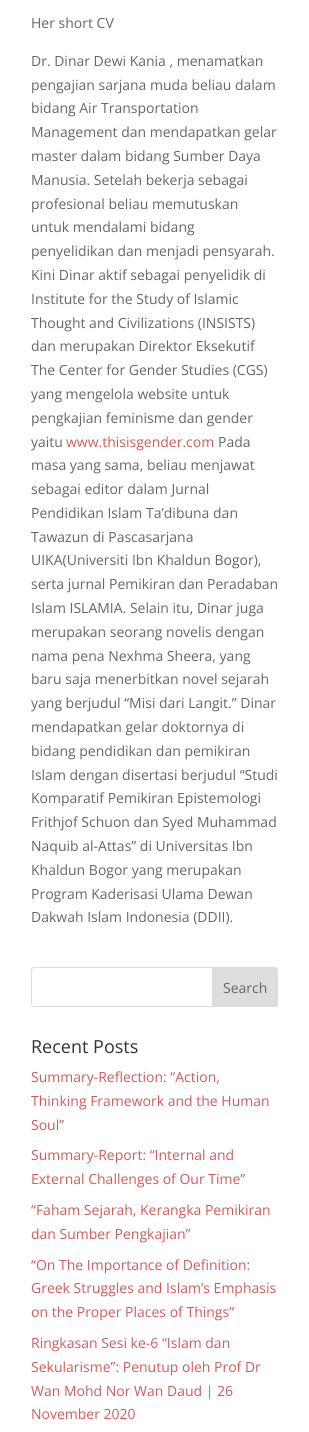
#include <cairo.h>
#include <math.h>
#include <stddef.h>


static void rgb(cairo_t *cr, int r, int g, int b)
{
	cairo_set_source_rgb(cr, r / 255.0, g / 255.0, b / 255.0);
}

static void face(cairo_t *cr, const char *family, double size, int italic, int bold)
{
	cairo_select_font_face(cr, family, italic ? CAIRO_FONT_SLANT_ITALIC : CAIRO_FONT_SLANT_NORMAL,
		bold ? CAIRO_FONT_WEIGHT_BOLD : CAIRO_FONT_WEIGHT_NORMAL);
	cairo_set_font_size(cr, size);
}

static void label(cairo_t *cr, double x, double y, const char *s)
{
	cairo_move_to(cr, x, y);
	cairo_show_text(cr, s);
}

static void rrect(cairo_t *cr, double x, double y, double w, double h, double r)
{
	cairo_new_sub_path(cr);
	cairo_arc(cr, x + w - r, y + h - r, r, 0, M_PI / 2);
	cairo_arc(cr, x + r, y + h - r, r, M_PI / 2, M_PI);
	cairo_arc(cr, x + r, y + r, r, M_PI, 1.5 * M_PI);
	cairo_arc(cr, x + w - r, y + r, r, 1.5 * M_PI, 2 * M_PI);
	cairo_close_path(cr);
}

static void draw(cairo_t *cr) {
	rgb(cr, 255, 255, 255);
	cairo_paint(cr);
	face(cr, "Open Sans", 14, 0, 0);
	rgb(cr, 102, 102, 102);
	label(cr, 31, 28, "Her short CV");
	label(cr, 31, 66, "Dr. Dinar Dewi Kania , menamatkan");
	label(cr, 31, 90, "pengajian sarjana muda beliau dalam");
	label(cr, 31, 113, "bidang Air Transportation");
	label(cr, 31, 137, "Management dan mendapatkan gelar");
	label(cr, 31, 161, "master dalam bidang Sumber Daya");
	label(cr, 31, 185, "Manusia. Setelah bekerja sebagai");
	label(cr, 31, 209, "profesional beliau memutuskan");
	label(cr, 31, 232, "untuk mendalami bidang");
	label(cr, 31, 256, "penyelidikan dan menjadi pensyarah.");
	label(cr, 31, 280, "Kini Dinar aktif sebagai penyelidik di");
	label(cr, 31, 304, "Institute for the Study of Islamic");
	label(cr, 31, 328, "Thought and Civilizations (INSISTS)");
	label(cr, 31, 351, "dan merupakan Direktor Eksekutif");
	label(cr, 31, 375, "The Center for Gender Studies (CGS)");
	label(cr, 31, 399, "yang mengelola website untuk");
	label(cr, 31, 423, "pengkajian feminisme dan gender");
	label(cr, 31, 447, "yaitu");
	rgb(cr, 205, 92, 92);
	label(cr, 66, 447, "www.thisisgender.com");
	rgb(cr, 102, 102, 102);
	label(cr, 218, 447, "Pada");
	label(cr, 31, 470, "masa yang sama, beliau menjawat");
	label(cr, 31, 494, "sebagai editor dalam Jurnal");
	label(cr, 31, 518, "Pendidikan Islam Ta’dibuna dan");
	label(cr, 31, 542, "Tawazun di Pascasarjana");
	label(cr, 31, 565, "UIKA(Universiti Ibn Khaldun Bogor),");
	label(cr, 31, 589, "serta jurnal Pemikiran dan Peradaban");
	label(cr, 31, 613, "Islam ISLAMIA. Selain itu, Dinar juga");
	label(cr, 31, 637, "merupakan seorang novelis dengan");
	label(cr, 31, 661, "nama pena Nexhma Sheera, yang");
	label(cr, 31, 684, "baru saja menerbitkan novel sejarah");
	label(cr, 31, 708, "yang berjudul “Misi dari Langit.” Dinar");
	label(cr, 31, 732, "mendapatkan gelar doktornya di");
	label(cr, 31, 756, "bidang pendidikan dan pemikiran");
	label(cr, 31, 780, "Islam dengan disertasi berjudul “Studi");
	label(cr, 31, 803, "Komparatif Pemikiran Epistemologi");
	label(cr, 31, 827, "Frithjof Schuon dan Syed Muhammad");
	label(cr, 31, 851, "Naquib al-Attas” di Universitas Ibn");
	label(cr, 31, 875, "Khaldun Bogor yang merupakan");
	label(cr, 31, 899, "Program Kaderisasi Ulama Dewan");
	label(cr, 31, 922, "Dakwah Islam Indonesia (DDII).");
	rrect(cr, 31.5, 967.5, 246, 39, 2.5);
	rgb(cr, 221, 221, 221);
	cairo_set_line_width(cr, 1);
	cairo_stroke(cr);
	cairo_new_path(cr);
	cairo_move_to(cr, 212.5, 967.5);
	cairo_line_to(cr, 275, 967.5);
	cairo_curve_to(cr, 276.5, 967.5, 277.5, 968.5, 277.5, 970);
	cairo_line_to(cr, 277.5, 1004);
	cairo_curve_to(cr, 277.5, 1005.5, 276.5, 1006.5, 275, 1006.5);
	cairo_line_to(cr, 212.5, 1006.5);
	cairo_close_path(cr);
	cairo_fill_preserve(cr);
	cairo_stroke(cr);
	rgb(cr, 102, 102, 102);
	label(cr, 223, 993, "Search");
	face(cr, "Open Sans", 18, 0, 0);
	rgb(cr, 51, 51, 51);
	label(cr, 31, 1053, "Recent Posts");
	face(cr, "Open Sans", 14, 0, 0);
	rgb(cr, 205, 92, 92);
	label(cr, 31, 1082, "Summary-Reflection: “Action,");
	label(cr, 31, 1106, "Thinking Framework and the Human");
	label(cr, 31, 1130, "Soul”");
	label(cr, 31, 1160, "Summary-Report: “Internal and");
	label(cr, 31, 1184, "External Challenges of Our Time”");
	label(cr, 31, 1215, "“Faham Sejarah, Kerangka Pemikiran");
	label(cr, 31, 1239, "dan Sumber Pengkajian”");
	label(cr, 31, 1270, "“On The Importance of Definition:");
	label(cr, 31, 1293, "Greek Struggles and Islam’s Emphasis");
	label(cr, 31, 1317, "on the Proper Places of Things”");
	label(cr, 31, 1348, "Ringkasan Sesi ke-6 “Islam dan");
	label(cr, 31, 1372, "Sekularisme”: Penutup oleh Prof Dr");
	label(cr, 31, 1396, "Wan Mohd Nor Wan Daud | 26");
	label(cr, 31, 1419, "November 2020");
}

int main(void) {
	cairo_surface_t *surface = cairo_image_surface_create(CAIRO_FORMAT_RGB24, 309, 1432);
	cairo_t *cr = cairo_create(surface);
	cairo_font_options_t *options = cairo_font_options_create();
	cairo_font_options_set_hint_metrics(options, CAIRO_HINT_METRICS_OFF);
	cairo_font_options_set_hint_style(options, CAIRO_HINT_STYLE_NONE);
	cairo_set_font_options(cr, options);
	cairo_set_miter_limit(cr, 4);
	draw(cr);
	cairo_surface_write_to_png(surface, "render.png");
	cairo_font_options_destroy(options);
	cairo_destroy(cr);
	cairo_surface_destroy(surface);
	return 0;
}
